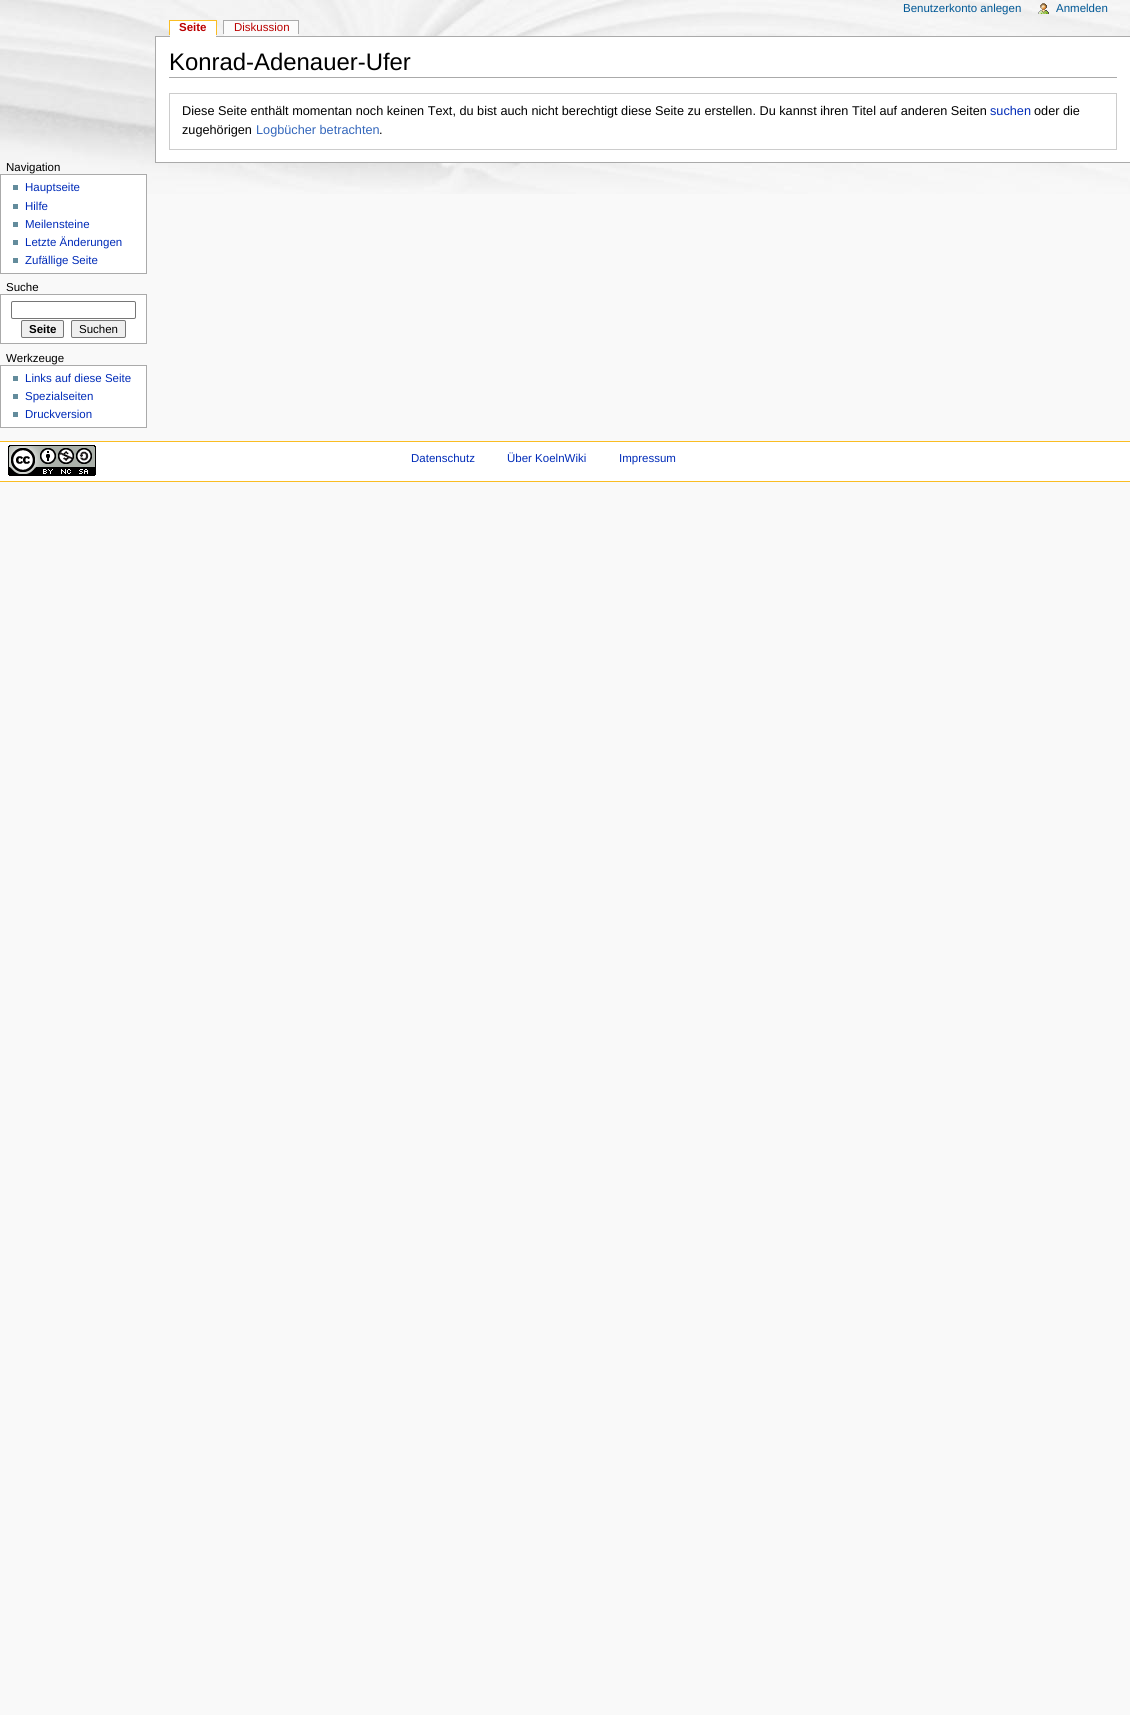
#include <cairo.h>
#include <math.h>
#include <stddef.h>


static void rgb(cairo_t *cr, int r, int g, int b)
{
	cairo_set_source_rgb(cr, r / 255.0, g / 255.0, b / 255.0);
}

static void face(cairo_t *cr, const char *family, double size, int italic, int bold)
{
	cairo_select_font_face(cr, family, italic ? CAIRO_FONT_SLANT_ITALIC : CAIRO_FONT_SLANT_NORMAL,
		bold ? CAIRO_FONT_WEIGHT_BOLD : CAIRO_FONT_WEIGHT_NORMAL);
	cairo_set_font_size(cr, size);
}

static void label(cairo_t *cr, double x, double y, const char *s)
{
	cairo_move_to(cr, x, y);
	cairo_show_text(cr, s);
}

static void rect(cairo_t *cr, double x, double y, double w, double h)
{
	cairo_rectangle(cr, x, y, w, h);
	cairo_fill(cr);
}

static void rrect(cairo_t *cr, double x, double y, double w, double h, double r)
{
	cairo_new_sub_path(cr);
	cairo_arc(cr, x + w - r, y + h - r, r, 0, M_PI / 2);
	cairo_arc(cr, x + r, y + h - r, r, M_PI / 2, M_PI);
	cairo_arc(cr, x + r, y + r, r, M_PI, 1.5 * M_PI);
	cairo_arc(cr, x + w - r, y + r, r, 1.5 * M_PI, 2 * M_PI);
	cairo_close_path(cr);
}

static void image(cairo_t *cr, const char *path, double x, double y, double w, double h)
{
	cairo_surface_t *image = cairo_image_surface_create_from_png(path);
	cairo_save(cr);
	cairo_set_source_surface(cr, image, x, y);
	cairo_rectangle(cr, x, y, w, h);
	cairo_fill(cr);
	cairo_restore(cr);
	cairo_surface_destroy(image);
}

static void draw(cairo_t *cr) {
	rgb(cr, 249, 249, 249);
	cairo_paint(cr);
	image(cr, "image0.png", 0, 0, 1130, 194);
	face(cr, "Liberation Sans", 11.5, 0, 0);
	rgb(cr, 0, 88, 150);
	label(cr, 903, 12, "Benutzerkonto anlegen");
	image(cr, "image1.png", 1038, 3, 11, 11);
	label(cr, 1056, 12, "Anmelden");
	rgb(cr, 170, 170, 170);
	rect(cr, 155, 36, 975, 1);
	rgb(cr, 255, 255, 255);
	rect(cr, 170, 21, 46, 16);
	face(cr, "Liberation Sans", 11.5, 0, 1);
	rgb(cr, 186, 0, 0);
	label(cr, 179, 31, "Seite");
	rgb(cr, 250, 189, 35);
	rect(cr, 169, 20, 48, 1);
	rect(cr, 216, 20, 1, 15);
	rect(cr, 169, 20, 1, 15);
	rgb(cr, 251, 251, 251);
	rect(cr, 224, 21, 74, 15);
	face(cr, "Liberation Sans", 11.5, 0, 0);
	rgb(cr, 186, 0, 0);
	label(cr, 234, 31, "Diskussion");
	rgb(cr, 170, 170, 170);
	rect(cr, 223, 20, 76, 1);
	rect(cr, 298, 20, 1, 14);
	rect(cr, 223, 20, 1, 14);
	rgb(cr, 0, 0, 0);
	label(cr, 6, 171, "Navigation");
	rgb(cr, 255, 255, 255);
	cairo_rectangle(cr, 0.5, 174.5, 146, 99);
	cairo_fill_preserve(cr);
	rgb(cr, 170, 170, 170);
	cairo_set_line_width(cr, 1);
	cairo_stroke(cr);
	rgb(cr, 99, 140, 156);
	rect(cr, 13, 185, 5, 5);
	rgb(cr, 0, 43, 184);
	label(cr, 25, 191, "Hauptseite");
	rgb(cr, 99, 140, 156);
	rect(cr, 13, 204, 5, 5);
	rgb(cr, 0, 43, 184);
	label(cr, 25, 210, "Hilfe");
	rgb(cr, 99, 140, 156);
	rect(cr, 13, 222, 5, 5);
	rgb(cr, 0, 43, 184);
	label(cr, 25, 228, "Meilensteine");
	rgb(cr, 99, 140, 156);
	rect(cr, 13, 240, 5, 5);
	rgb(cr, 0, 43, 184);
	label(cr, 25, 246, "Letzte Änderungen");
	rgb(cr, 99, 140, 156);
	rect(cr, 13, 258, 5, 5);
	rgb(cr, 0, 43, 184);
	label(cr, 25, 264, "Zufällige Seite");
	rgb(cr, 0, 0, 0);
	label(cr, 6, 291, "Suche");
	rgb(cr, 255, 255, 255);
	cairo_rectangle(cr, 0.5, 294.5, 146, 49);
	cairo_fill_preserve(cr);
	rgb(cr, 170, 170, 170);
	cairo_stroke(cr);
	rrect(cr, 11.5, 301.5, 124, 17, 1.5);
	rgb(cr, 118, 118, 118);
	cairo_stroke(cr);
	rgb(cr, 239, 239, 239);
	rrect(cr, 21.5, 320.5, 42, 17, 1.5);
	cairo_fill_preserve(cr);
	rgb(cr, 118, 118, 118);
	cairo_stroke(cr);
	face(cr, "Liberation Sans", 11.5, 0, 1);
	rgb(cr, 0, 0, 0);
	label(cr, 29, 333, "Seite");
	rgb(cr, 239, 239, 239);
	rrect(cr, 71.5, 320.5, 54, 17, 1.5);
	cairo_fill_preserve(cr);
	rgb(cr, 118, 118, 118);
	cairo_stroke(cr);
	face(cr, "Liberation Sans", 11.5, 0, 0);
	rgb(cr, 0, 0, 0);
	label(cr, 79, 333, "Suchen");
	label(cr, 6, 362, "Werkzeuge");
	rgb(cr, 255, 255, 255);
	cairo_rectangle(cr, 0.5, 365.5, 146, 62);
	cairo_fill_preserve(cr);
	rgb(cr, 170, 170, 170);
	cairo_stroke(cr);
	rgb(cr, 99, 140, 156);
	rect(cr, 13, 376, 5, 5);
	rgb(cr, 0, 43, 184);
	label(cr, 25, 382, "Links auf diese Seite");
	rgb(cr, 99, 140, 156);
	rect(cr, 13, 394, 5, 5);
	rgb(cr, 0, 43, 184);
	label(cr, 25, 400, "Spezialseiten");
	rgb(cr, 99, 140, 156);
	rect(cr, 13, 412, 5, 5);
	rgb(cr, 0, 43, 184);
	label(cr, 25, 418, "Druckversion");
	rgb(cr, 255, 255, 255);
	rect(cr, 156, 37, 974, 125);
	rgb(cr, 170, 170, 170);
	rect(cr, 155, 162, 975, 1);
	rect(cr, 155, 36, 1, 127);
	rect(cr, 169, 77, 948, 1);
	face(cr, "Liberation Sans", 23.9, 0, 0);
	rgb(cr, 0, 0, 0);
	label(cr, 169, 70, "Konrad-Adenauer-Ufer");
	cairo_rectangle(cr, 169.5, 93.5, 947, 56);
	rgb(cr, 204, 204, 204);
	cairo_stroke(cr);
	face(cr, "Liberation Sans", 12.7, 0, 0);
	rgb(cr, 0, 0, 0);
	label(cr, 182, 115, "Diese Seite enthält momentan noch keinen Text, du bist auch nicht berechtigt diese Seite zu erstellen. Du kannst ihren Titel auf anderen Seiten");
	rgb(cr, 0, 43, 184);
	label(cr, 990, 115, "suchen");
	rgb(cr, 0, 0, 0);
	label(cr, 1034, 115, "oder die");
	label(cr, 182, 134, "zugehörigen");
	rgb(cr, 51, 102, 187);
	label(cr, 256, 134, "Logbücher betrachten");
	rgb(cr, 0, 0, 0);
	label(cr, 379, 134, ".");
	rgb(cr, 255, 255, 255);
	rect(cr, 0, 442, 1130, 39);
	rgb(cr, 250, 189, 35);
	rect(cr, 0, 441, 1130, 1);
	rect(cr, 0, 481, 1130, 1);
	image(cr, "image2.png", 8, 445, 88, 31);
	face(cr, "Liberation Sans", 11.5, 0, 0);
	rgb(cr, 0, 43, 184);
	label(cr, 411, 462, "Datenschutz");
	label(cr, 507, 462, "Über KoelnWiki");
	label(cr, 619, 462, "Impressum");
}

int main(void) {
	cairo_surface_t *surface = cairo_image_surface_create(CAIRO_FORMAT_RGB24, 1130, 1715);
	cairo_t *cr = cairo_create(surface);
	cairo_font_options_t *options = cairo_font_options_create();
	cairo_font_options_set_hint_metrics(options, CAIRO_HINT_METRICS_OFF);
	cairo_font_options_set_hint_style(options, CAIRO_HINT_STYLE_NONE);
	cairo_set_font_options(cr, options);
	cairo_set_miter_limit(cr, 4);
	draw(cr);
	cairo_surface_write_to_png(surface, "render.png");
	cairo_font_options_destroy(options);
	cairo_destroy(cr);
	cairo_surface_destroy(surface);
	return 0;
}
